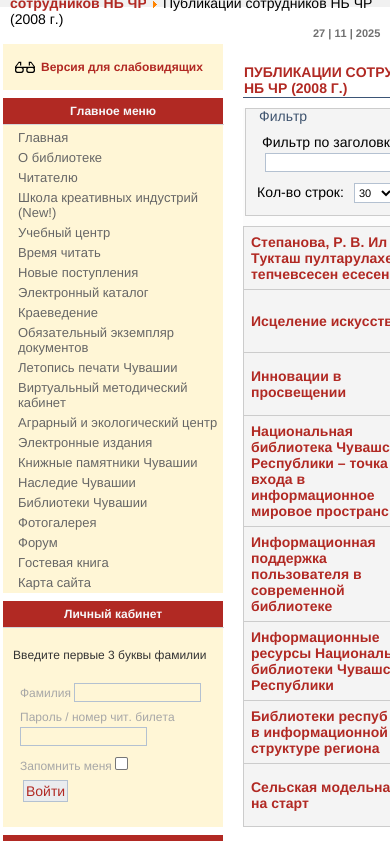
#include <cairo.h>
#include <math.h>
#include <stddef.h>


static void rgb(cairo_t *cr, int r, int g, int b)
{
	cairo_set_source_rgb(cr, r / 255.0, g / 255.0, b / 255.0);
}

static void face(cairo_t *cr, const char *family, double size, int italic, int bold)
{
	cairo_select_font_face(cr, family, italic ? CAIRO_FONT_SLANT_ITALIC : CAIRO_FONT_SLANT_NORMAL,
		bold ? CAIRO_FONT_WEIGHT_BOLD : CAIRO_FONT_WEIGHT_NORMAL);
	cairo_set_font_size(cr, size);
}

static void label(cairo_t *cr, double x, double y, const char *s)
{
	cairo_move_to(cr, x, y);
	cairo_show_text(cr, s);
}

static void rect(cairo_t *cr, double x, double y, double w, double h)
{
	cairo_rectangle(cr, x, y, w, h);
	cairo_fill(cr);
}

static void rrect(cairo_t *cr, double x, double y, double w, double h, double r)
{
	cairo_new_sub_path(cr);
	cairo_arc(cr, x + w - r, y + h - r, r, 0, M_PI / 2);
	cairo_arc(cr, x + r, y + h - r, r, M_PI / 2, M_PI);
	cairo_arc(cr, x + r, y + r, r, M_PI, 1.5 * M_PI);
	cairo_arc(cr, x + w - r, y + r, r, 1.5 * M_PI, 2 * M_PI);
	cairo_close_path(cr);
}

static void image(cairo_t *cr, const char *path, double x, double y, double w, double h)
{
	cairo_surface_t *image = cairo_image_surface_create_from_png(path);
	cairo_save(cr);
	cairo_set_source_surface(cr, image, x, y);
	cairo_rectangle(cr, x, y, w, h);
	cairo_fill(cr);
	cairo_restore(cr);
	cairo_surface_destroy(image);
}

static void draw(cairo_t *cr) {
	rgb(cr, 255, 255, 255);
	cairo_paint(cr);
	rgb(cr, 241, 241, 241);
	rect(cr, 0, 0, 390, 7);
	face(cr, "Liberation Sans", 14, 0, 1);
	rgb(cr, 177, 41, 35);
	label(cr, 10, 8, "сотрудников НБ ЧР");
	image(cr, "image0.png", 153, 1, 4, 7);
	face(cr, "Liberation Sans", 14, 0, 0);
	rgb(cr, 0, 0, 0);
	label(cr, 163, 8, "Публикации сотрудников НБ ЧР");
	label(cr, 10, 24, "(2008 г.)");
	face(cr, "Liberation Sans", 11, 0, 1);
	rgb(cr, 112, 112, 112);
	label(cr, 313, 37, "27 | 11 | 2025");
	rgb(cr, 255, 246, 214);
	rect(cr, 3, 44, 220, 46);
	image(cr, "image1.png", 15, 61, 20, 12);
	face(cr, "Liberation Sans", 12, 0, 1);
	rgb(cr, 177, 41, 35);
	label(cr, 41, 71, "Версия для слабовидящих");
	rgb(cr, 255, 246, 214);
	rect(cr, 3, 125, 220, 468);
	rgb(cr, 177, 41, 35);
	rect(cr, 3, 98, 220, 26);
	rgb(cr, 210, 213, 216);
	rect(cr, 3, 124, 221, 1);
	rgb(cr, 246, 247, 249);
	label(cr, 70, 115, "Главное меню");
	face(cr, "Liberation Sans", 13, 0, 0);
	rgb(cr, 102, 102, 102);
	label(cr, 18, 142, "Главная");
	label(cr, 18, 162, "О библиотеке");
	label(cr, 18, 182, "Читателю");
	label(cr, 18, 202, "Школа креативных индустрий");
	label(cr, 18, 217, "(New!)");
	label(cr, 18, 237, "Учебный центр");
	label(cr, 18, 257, "Время читать");
	label(cr, 18, 277, "Новые поступления");
	label(cr, 18, 297, "Электронный каталог");
	label(cr, 18, 317, "Краеведение");
	label(cr, 18, 337, "Обязательный экземпляр");
	label(cr, 18, 352, "документов");
	label(cr, 18, 372, "Летопись печати Чувашии");
	label(cr, 18, 392, "Виртуальный методический");
	label(cr, 18, 407, "кабинет");
	label(cr, 18, 427, "Аграрный и экологический центр");
	label(cr, 18, 447, "Электронные издания");
	label(cr, 18, 467, "Книжные памятники Чувашии");
	label(cr, 18, 487, "Наследие Чувашии");
	label(cr, 18, 507, "Библиотеки Чувашии");
	label(cr, 18, 527, "Фотогалерея");
	label(cr, 18, 547, "Форум");
	label(cr, 18, 567, "Гостевая книга");
	label(cr, 18, 587, "Карта сайта");
	rgb(cr, 255, 246, 214);
	rect(cr, 3, 628, 220, 199);
	rgb(cr, 177, 41, 35);
	rect(cr, 3, 601, 220, 26);
	rgb(cr, 210, 213, 216);
	rect(cr, 3, 627, 221, 1);
	face(cr, "Liberation Sans", 12, 0, 1);
	rgb(cr, 246, 247, 249);
	label(cr, 64, 618, "Личный кабинет");
	face(cr, "Liberation Sans", 12, 0, 0);
	rgb(cr, 51, 51, 51);
	label(cr, 13, 659, "Введите первые 3 буквы фамилии");
	rgb(cr, 167, 167, 167);
	label(cr, 20, 697, "Фамилия");
	cairo_rectangle(cr, 74.5, 683.5, 126, 18);
	rgb(cr, 180, 193, 209);
	cairo_set_line_width(cr, 1);
	cairo_stroke(cr);
	rgb(cr, 167, 167, 167);
	label(cr, 20, 721, "Пароль / номер чит. билета");
	cairo_rectangle(cr, 20.5, 727.5, 126, 18);
	rgb(cr, 180, 193, 209);
	cairo_stroke(cr);
	rgb(cr, 167, 167, 167);
	label(cr, 20, 770, "Запомнить меня");
	rgb(cr, 255, 255, 255);
	rrect(cr, 115.5, 757.5, 12, 12, 1.5);
	cairo_fill_preserve(cr);
	rgb(cr, 118, 118, 118);
	cairo_stroke(cr);
	rgb(cr, 234, 236, 238);
	cairo_rectangle(cr, 23.5, 780.5, 44, 21);
	cairo_fill_preserve(cr);
	rgb(cr, 180, 193, 209);
	cairo_stroke(cr);
	face(cr, "Liberation Sans", 14, 0, 0);
	rgb(cr, 177, 41, 35);
	label(cr, 26, 796, "Войти");
	rect(cr, 3, 835, 220, 6);
	rgb(cr, 59, 85, 118);
	rect(cr, 243, 97, 147, 1);
	face(cr, "Liberation Sans", 14, 0, 1);
	rgb(cr, 177, 41, 35);
	label(cr, 244, 77, "ПУБЛИКАЦИИ СОТРУ");
	label(cr, 244, 93, "НБ ЧР (2008 Г.)");
	rgb(cr, 252, 252, 252);
	rect(cr, 243, 108, 147, 118);
	rgb(cr, 244, 244, 244);
	cairo_rectangle(cr, 245.5, 108.5, 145, 107);
	cairo_fill_preserve(cr);
	rgb(cr, 204, 204, 204);
	cairo_stroke(cr);
	face(cr, "Liberation Sans", 14, 0, 0);
	rgb(cr, 62, 83, 110);
	label(cr, 259, 121, "Фильтр");
	rgb(cr, 0, 0, 0);
	label(cr, 262, 147, "Фильтр по заголовк");
	rgb(cr, 255, 255, 255);
	cairo_rectangle(cr, 265.5, 153.5, 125, 18);
	cairo_fill_preserve(cr);
	rgb(cr, 180, 193, 209);
	cairo_stroke(cr);
	rgb(cr, 0, 0, 0);
	label(cr, 257, 197, "Кол-во строк:");
	rgb(cr, 255, 255, 255);
	cairo_rectangle(cr, 354.5, 183.5, 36, 19);
	cairo_fill_preserve(cr);
	rgb(cr, 180, 193, 209);
	cairo_stroke(cr);
	cairo_new_path(cr);
	cairo_move_to(cr, 382, 191);
	cairo_line_to(cr, 386, 195);
	cairo_line_to(cr, 390, 191);
	rgb(cr, 0, 0, 0);
	cairo_set_line_width(cr, 2);
	cairo_stroke(cr);
	face(cr, "Liberation Sans", 11, 0, 0);
	label(cr, 359, 197, "30");
	rgb(cr, 244, 244, 244);
	rect(cr, 244, 227, 146, 62);
	rgb(cr, 204, 204, 204);
	rect(cr, 243, 226, 147, 1);
	rect(cr, 243, 289, 147, 1);
	rect(cr, 243, 352, 147, 1);
	rect(cr, 243, 415, 147, 1);
	rect(cr, 243, 526, 147, 1);
	rect(cr, 243, 621, 147, 1);
	rect(cr, 243, 700, 147, 1);
	rect(cr, 243, 763, 147, 1);
	rect(cr, 243, 826, 147, 1);
	rect(cr, 243, 763, 1, 64);
	rect(cr, 243, 700, 1, 64);
	rect(cr, 243, 621, 1, 80);
	rect(cr, 243, 526, 1, 96);
	rect(cr, 243, 415, 1, 112);
	rect(cr, 243, 352, 1, 64);
	rect(cr, 243, 289, 1, 64);
	rect(cr, 243, 226, 1, 64);
	face(cr, "Liberation Sans", 14, 0, 1);
	rgb(cr, 177, 41, 35);
	label(cr, 251, 247, "Степанова, Р. В. Ил");
	label(cr, 251, 263, "Тукташ пултарулахе");
	label(cr, 251, 279, "тепчевсесен есесен");
	rgb(cr, 244, 244, 244);
	rect(cr, 244, 290, 146, 62);
	rgb(cr, 177, 41, 35);
	label(cr, 251, 326, "Исцеление искусств");
	rgb(cr, 244, 244, 244);
	rect(cr, 244, 353, 146, 62);
	rgb(cr, 177, 41, 35);
	label(cr, 251, 381, "Инновации в");
	label(cr, 251, 397, "просвещении");
	rgb(cr, 244, 244, 244);
	rect(cr, 244, 416, 146, 110);
	rgb(cr, 177, 41, 35);
	label(cr, 251, 436, "Национальная");
	label(cr, 251, 452, "библиотека Чувашс");
	label(cr, 251, 468, "Республики – точка");
	label(cr, 251, 484, "входа в");
	label(cr, 251, 500, "информационное");
	label(cr, 251, 516, "мировое пространс");
	rgb(cr, 244, 244, 244);
	rect(cr, 244, 527, 146, 94);
	rgb(cr, 177, 41, 35);
	label(cr, 251, 547, "Информационная");
	label(cr, 251, 563, "поддержка");
	label(cr, 251, 579, "пользователя в");
	label(cr, 251, 595, "современной");
	label(cr, 251, 611, "библиотеке");
	rgb(cr, 244, 244, 244);
	rect(cr, 244, 622, 146, 78);
	rgb(cr, 177, 41, 35);
	label(cr, 251, 642, "Информационные");
	label(cr, 251, 658, "ресурсы Националь");
	label(cr, 251, 674, "библиотеки Чувашс");
	label(cr, 251, 690, "Республики");
	rgb(cr, 244, 244, 244);
	rect(cr, 244, 701, 146, 62);
	rgb(cr, 177, 41, 35);
	label(cr, 251, 721, "Библиотеки респуб");
	label(cr, 251, 737, "в информационной");
	label(cr, 251, 753, "структуре региона");
	rgb(cr, 244, 244, 244);
	rect(cr, 244, 764, 146, 62);
	rgb(cr, 177, 41, 35);
	label(cr, 251, 792, "Сельская модельна");
	label(cr, 251, 808, "на старт");
}

int main(void) {
	cairo_surface_t *surface = cairo_image_surface_create(CAIRO_FORMAT_RGB24, 390, 841);
	cairo_t *cr = cairo_create(surface);
	cairo_font_options_t *options = cairo_font_options_create();
	cairo_font_options_set_hint_metrics(options, CAIRO_HINT_METRICS_OFF);
	cairo_font_options_set_hint_style(options, CAIRO_HINT_STYLE_NONE);
	cairo_set_font_options(cr, options);
	cairo_set_miter_limit(cr, 4);
	draw(cr);
	cairo_surface_write_to_png(surface, "render.png");
	cairo_font_options_destroy(options);
	cairo_destroy(cr);
	cairo_surface_destroy(surface);
	return 0;
}
